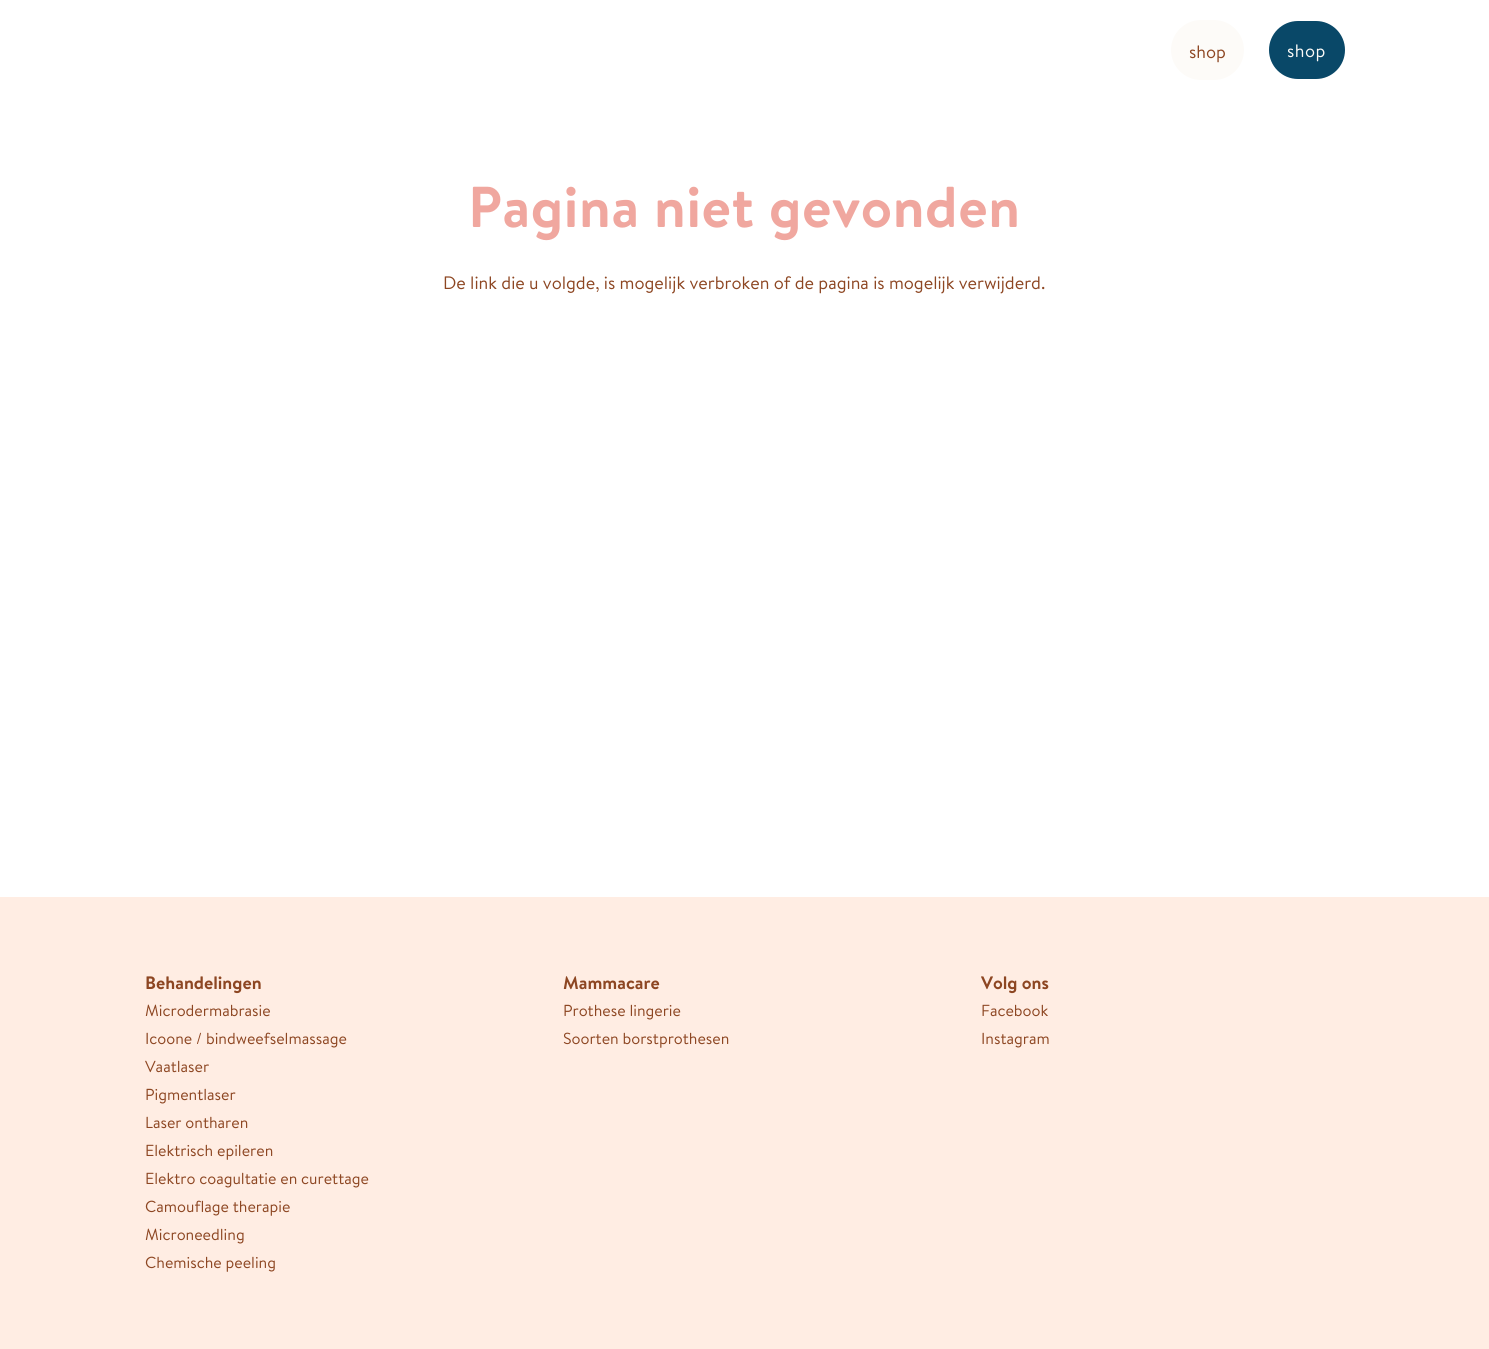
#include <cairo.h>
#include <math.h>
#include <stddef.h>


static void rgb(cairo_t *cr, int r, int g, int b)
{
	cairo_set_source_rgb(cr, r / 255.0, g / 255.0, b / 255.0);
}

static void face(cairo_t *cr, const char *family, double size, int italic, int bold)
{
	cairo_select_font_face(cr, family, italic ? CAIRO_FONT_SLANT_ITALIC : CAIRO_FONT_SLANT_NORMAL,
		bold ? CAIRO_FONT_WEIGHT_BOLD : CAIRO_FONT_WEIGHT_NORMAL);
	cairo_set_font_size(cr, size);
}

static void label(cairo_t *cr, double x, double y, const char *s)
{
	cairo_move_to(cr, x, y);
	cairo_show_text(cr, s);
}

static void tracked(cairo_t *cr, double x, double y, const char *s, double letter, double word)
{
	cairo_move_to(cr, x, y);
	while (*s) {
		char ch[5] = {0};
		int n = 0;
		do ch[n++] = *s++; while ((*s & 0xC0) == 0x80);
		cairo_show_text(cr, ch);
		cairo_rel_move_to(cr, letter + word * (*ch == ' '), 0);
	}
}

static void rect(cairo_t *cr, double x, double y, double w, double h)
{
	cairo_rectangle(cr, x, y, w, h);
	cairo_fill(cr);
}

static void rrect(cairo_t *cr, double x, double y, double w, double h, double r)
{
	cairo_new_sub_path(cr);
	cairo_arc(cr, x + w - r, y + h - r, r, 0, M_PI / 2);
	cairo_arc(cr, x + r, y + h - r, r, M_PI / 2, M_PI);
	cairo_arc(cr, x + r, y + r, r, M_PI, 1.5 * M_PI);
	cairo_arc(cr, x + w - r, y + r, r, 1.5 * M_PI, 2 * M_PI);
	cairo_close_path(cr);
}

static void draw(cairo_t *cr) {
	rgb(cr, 255, 255, 255);
	cairo_paint(cr);
	rgb(cr, 253, 251, 248);
	rrect(cr, 1171, 20, 73, 60, 30);
	cairo_fill(cr);
	face(cr, "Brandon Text", 18, 0, 0);
	rgb(cr, 141, 70, 34);
	label(cr, 1189, 58, "shop");
	rgb(cr, 9, 72, 104);
	rrect(cr, 1269, 21, 76, 58, 29);
	cairo_fill(cr);
	rgb(cr, 253, 251, 248);
	tracked(cr, 1287, 57, "shop", 0.5, 0);
	face(cr, "Brandon Text", 57.5, 0, 1);
	rgb(cr, 240, 167, 159);
	tracked(cr, 468, 227, "Pagina niet gevonden", 0.6, 0);
	face(cr, "Brandon Text", 18, 0, 0);
	rgb(cr, 141, 70, 34);
	label(cr, 443, 289, "De link die u volgde, is mogelijk verbroken of de pagina is mogelijk verwijderd.");
	rgb(cr, 255, 237, 227);
	rect(cr, 0, 897, 1489, 452);
	face(cr, "Brandon Text", 18, 0, 1);
	rgb(cr, 141, 70, 34);
	label(cr, 145, 989, "Behandelingen");
	face(cr, "Brandon Text", 16, 0, 0);
	label(cr, 145, 1016, "Microdermabrasie");
	label(cr, 145, 1044, "Icoone / bindweefselmassage");
	label(cr, 145, 1072, "Vaatlaser");
	label(cr, 145, 1100, "Pigmentlaser");
	label(cr, 145, 1128, "Laser ontharen");
	label(cr, 145, 1156, "Elektrisch epileren");
	label(cr, 145, 1184, "Elektro coagultatie en curettage");
	label(cr, 145, 1212, "Camouflage therapie");
	label(cr, 145, 1240, "Microneedling");
	label(cr, 145, 1268, "Chemische peeling");
	face(cr, "Brandon Text", 18, 0, 1);
	label(cr, 563, 989, "Mammacare");
	face(cr, "Brandon Text", 16, 0, 0);
	label(cr, 563, 1016, "Prothese lingerie");
	label(cr, 563, 1044, "Soorten borstprothesen");
	face(cr, "Brandon Text", 18, 0, 1);
	label(cr, 981, 989, "Volg ons");
	face(cr, "Brandon Text", 16, 0, 0);
	label(cr, 981, 1016, "Facebook");
	label(cr, 981, 1044, "Instagram");
}

int main(void) {
	cairo_surface_t *surface = cairo_image_surface_create(CAIRO_FORMAT_RGB24, 1489, 1349);
	cairo_t *cr = cairo_create(surface);
	cairo_font_options_t *options = cairo_font_options_create();
	cairo_font_options_set_hint_metrics(options, CAIRO_HINT_METRICS_OFF);
	cairo_font_options_set_hint_style(options, CAIRO_HINT_STYLE_NONE);
	cairo_set_font_options(cr, options);
	cairo_set_miter_limit(cr, 4);
	draw(cr);
	cairo_surface_write_to_png(surface, "render.png");
	cairo_font_options_destroy(options);
	cairo_destroy(cr);
	cairo_surface_destroy(surface);
	return 0;
}
